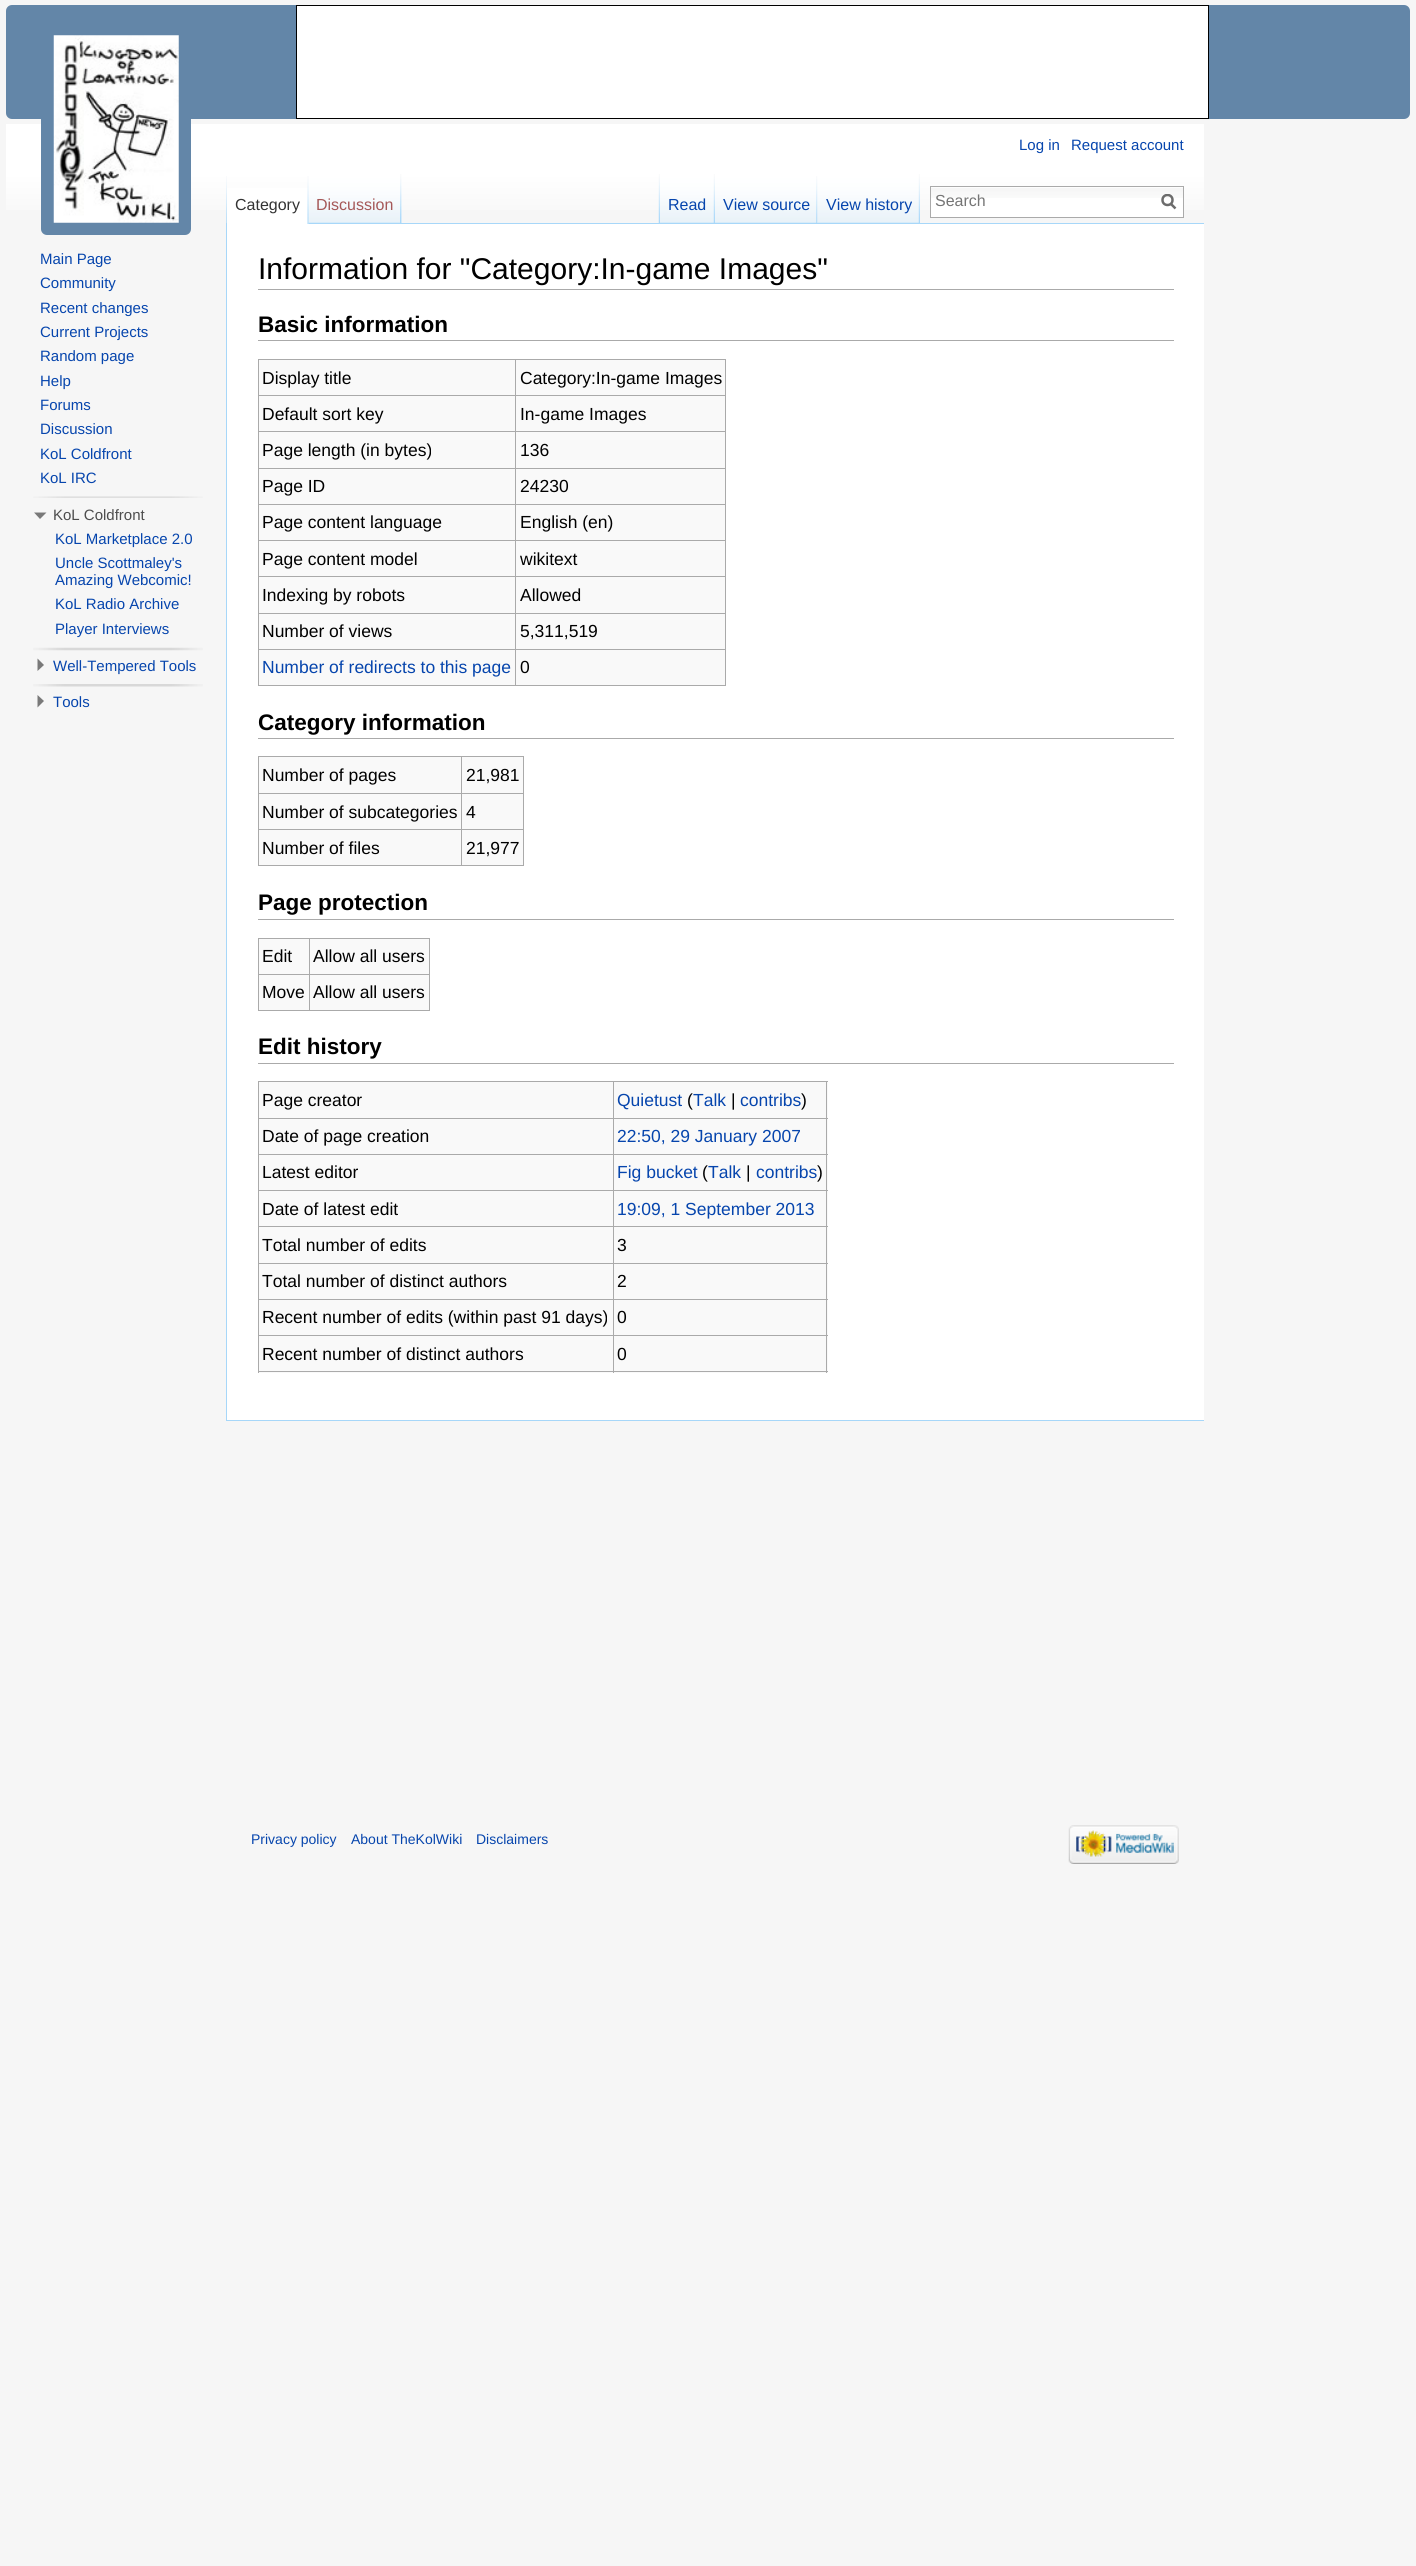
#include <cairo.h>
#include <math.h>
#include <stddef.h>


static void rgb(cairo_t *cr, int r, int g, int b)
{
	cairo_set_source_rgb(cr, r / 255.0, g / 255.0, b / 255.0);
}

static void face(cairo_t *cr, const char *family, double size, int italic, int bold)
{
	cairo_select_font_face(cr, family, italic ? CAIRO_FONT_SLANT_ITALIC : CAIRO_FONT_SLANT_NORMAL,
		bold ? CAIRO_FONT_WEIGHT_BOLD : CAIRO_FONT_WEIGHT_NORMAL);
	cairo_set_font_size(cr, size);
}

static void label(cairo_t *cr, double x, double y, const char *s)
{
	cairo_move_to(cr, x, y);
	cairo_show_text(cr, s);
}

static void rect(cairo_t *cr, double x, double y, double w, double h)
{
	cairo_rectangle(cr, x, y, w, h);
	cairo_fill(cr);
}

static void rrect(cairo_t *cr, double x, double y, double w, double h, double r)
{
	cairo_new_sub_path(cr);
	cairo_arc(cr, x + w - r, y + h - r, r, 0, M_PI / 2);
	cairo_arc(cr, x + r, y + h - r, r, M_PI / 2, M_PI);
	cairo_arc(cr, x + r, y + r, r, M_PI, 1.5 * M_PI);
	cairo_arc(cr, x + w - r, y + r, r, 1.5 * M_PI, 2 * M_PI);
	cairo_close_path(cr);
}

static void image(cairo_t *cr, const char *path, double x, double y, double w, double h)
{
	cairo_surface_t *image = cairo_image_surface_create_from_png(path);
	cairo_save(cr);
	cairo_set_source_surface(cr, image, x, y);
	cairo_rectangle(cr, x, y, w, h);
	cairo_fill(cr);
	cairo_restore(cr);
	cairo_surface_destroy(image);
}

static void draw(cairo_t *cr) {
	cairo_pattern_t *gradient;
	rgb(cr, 246, 246, 246);
	cairo_paint(cr);
	rgb(cr, 99, 134, 168);
	rrect(cr, 6, 5, 1404, 114, 6);
	cairo_fill(cr);
	rgb(cr, 255, 255, 255);
	cairo_rectangle(cr, 296.5, 5.5, 912, 113);
	cairo_fill_preserve(cr);
	rgb(cr, 0, 0, 0);
	cairo_set_line_width(cr, 1);
	cairo_stroke(cr);
	rgb(cr, 255, 255, 255);
	rect(cr, 227, 224, 977, 1196);
	gradient = cairo_pattern_create_linear(605, 124, 605, 224);
	cairo_pattern_add_color_stop_rgba(gradient, 0.5, 1, 1, 1, 1);
	cairo_pattern_add_color_stop_rgba(gradient, 1, 0.965, 0.965, 0.965, 1);
	cairo_set_source(cr, gradient);
	cairo_pattern_destroy(gradient);
	rect(cr, 6, 124, 1198, 86);
	face(cr, "Liberation Sans", 15, 0, 0);
	rgb(cr, 6, 69, 173);
	label(cr, 1019, 150, "Log in");
	label(cr, 1071, 150, "Request account");
	image(cr, "image0.png", 226, 176, 1, 47);
	image(cr, "image1.png", 401, 174, 1, 49);
	rgb(cr, 255, 255, 255);
	rect(cr, 227, 188, 82, 36);
	image(cr, "image2.png", 307, 176, 2, 48);
	face(cr, "Liberation Sans", 16, 0, 0);
	rgb(cr, 51, 51, 51);
	label(cr, 235, 210, "Category");
	image(cr, "image3.png", 308, 174, 93, 50);
	image(cr, "image4.png", 400, 174, 2, 49);
	rgb(cr, 165, 88, 88);
	label(cr, 316, 210, "Discussion");
	image(cr, "image5.png", 658, 174, 2, 49);
	rgb(cr, 167, 215, 249);
	rect(cr, 401, 223, 803, 1);
	image(cr, "image6.png", 660, 174, 55, 50);
	image(cr, "image7.png", 713, 174, 2, 49);
	rgb(cr, 6, 69, 173);
	label(cr, 668, 210, "Read");
	image(cr, "image8.png", 715, 174, 103, 50);
	image(cr, "image9.png", 816, 176, 2, 48);
	label(cr, 723, 210, "View source");
	image(cr, "image10.png", 817, 174, 103, 50);
	image(cr, "image7.png", 918, 174, 2, 49);
	label(cr, 826, 210, "View history");
	rgb(cr, 255, 255, 255);
	rect(cr, 931, 188, 252, 29);
	image(cr, "image11.png", 931, 188, 252, 10);
	cairo_rectangle(cr, 930.5, 186.5, 253, 31);
	rgb(cr, 170, 170, 170);
	cairo_stroke(cr);
	rgb(cr, 117, 117, 117);
	label(cr, 935, 206, "Search");
	cairo_new_path(cr);
	cairo_move_to(cr, 1175.5, 208.5);
	cairo_line_to(cr, 1170.5, 203.5);
	rgb(cr, 108, 108, 108);
	cairo_set_line_width(cr, 2.5);
	cairo_stroke(cr);
	cairo_save(cr);
	cairo_rectangle(cr, 1161, 194, 15, 16);
	cairo_clip(cr);
	cairo_arc(cr, 1167.5, 200, 5, 0, 2 * M_PI);
	cairo_stroke(cr);
	cairo_restore(cr);
	rgb(cr, 99, 134, 168);
	rrect(cr, 41, 23, 150, 212, 6);
	cairo_fill(cr);
	image(cr, "image12.png", 53, 35, 126, 188);
	face(cr, "Liberation Sans", 15, 0, 0);
	rgb(cr, 6, 69, 173);
	label(cr, 40, 264, "Main Page");
	label(cr, 40, 288, "Community");
	label(cr, 40, 313, "Recent changes");
	label(cr, 40, 337, "Current Projects");
	label(cr, 40, 361, "Random page");
	label(cr, 40, 386, "Help");
	label(cr, 40, 410, "Forums");
	label(cr, 40, 434, "Discussion");
	label(cr, 40, 459, "KoL Coldfront");
	label(cr, 40, 483, "KoL IRC");
	image(cr, "image13.png", 33, 496, 170, 2);
	rgb(cr, 121, 121, 121);
	cairo_new_path(cr);
	cairo_move_to(cr, 46.5, 512.5);
	cairo_line_to(cr, 40, 519);
	cairo_line_to(cr, 34, 512.5);
	cairo_close_path(cr);
	cairo_fill(cr);
	rgb(cr, 77, 77, 77);
	label(cr, 53, 520, "KoL Coldfront");
	rgb(cr, 6, 69, 173);
	label(cr, 55, 544, "KoL Marketplace 2.0");
	label(cr, 55, 568, "Uncle Scottmaley's");
	label(cr, 55, 585, "Amazing Webcomic!");
	label(cr, 55, 609, "KoL Radio Archive");
	label(cr, 55, 634, "Player Interviews");
	image(cr, "image14.png", 33, 647, 170, 4);
	rgb(cr, 121, 121, 121);
	cairo_new_path(cr);
	cairo_move_to(cr, 37.5, 658.5);
	cairo_line_to(cr, 44, 665);
	cairo_line_to(cr, 37.5, 671);
	cairo_close_path(cr);
	cairo_fill(cr);
	rgb(cr, 6, 69, 173);
	label(cr, 53, 671, "Well-Tempered Tools");
	image(cr, "image15.png", 33, 684, 170, 3);
	rgb(cr, 121, 121, 121);
	cairo_new_path(cr);
	cairo_move_to(cr, 37.5, 695);
	cairo_line_to(cr, 44, 701);
	cairo_line_to(cr, 37.5, 707.5);
	cairo_close_path(cr);
	cairo_fill(cr);
	rgb(cr, 6, 69, 173);
	label(cr, 53, 707, "Tools");
	rgb(cr, 167, 215, 249);
	rect(cr, 226, 1420, 978, 1);
	rect(cr, 226, 223, 1, 1198);
	rgb(cr, 170, 170, 170);
	rect(cr, 258, 289, 916, 1);
	face(cr, "Liberation Sans", 30, 0, 0);
	rgb(cr, 0, 0, 0);
	label(cr, 258, 279, "Information for \"Category:In-game Images\"");
	rgb(cr, 170, 170, 170);
	rect(cr, 258, 340, 916, 1);
	face(cr, "Liberation Sans", 22.5, 0, 1);
	rgb(cr, 0, 0, 0);
	label(cr, 258, 332, "Basic information");
	rgb(cr, 249, 249, 249);
	rect(cr, 259, 360, 466, 325);
	rgb(cr, 170, 170, 170);
	rect(cr, 258, 359, 468, 1);
	rect(cr, 725, 359, 1, 327);
	rect(cr, 258, 685, 468, 1);
	rect(cr, 258, 359, 1, 327);
	face(cr, "Liberation Sans", 17.5, 0, 0);
	rgb(cr, 0, 0, 0);
	label(cr, 262, 384, "Display title");
	rgb(cr, 170, 170, 170);
	rect(cr, 515, 395, 211, 1);
	rect(cr, 515, 431, 211, 1);
	rect(cr, 515, 468, 211, 1);
	rect(cr, 515, 504, 211, 1);
	rect(cr, 515, 540, 211, 1);
	rect(cr, 515, 576, 211, 1);
	rect(cr, 515, 613, 211, 1);
	rect(cr, 515, 649, 211, 1);
	rect(cr, 515, 649, 1, 37);
	rect(cr, 258, 649, 258, 1);
	rect(cr, 515, 613, 1, 37);
	rect(cr, 258, 613, 258, 1);
	rect(cr, 515, 576, 1, 38);
	rect(cr, 258, 576, 258, 1);
	rect(cr, 515, 540, 1, 38);
	rect(cr, 258, 540, 258, 1);
	rect(cr, 515, 504, 1, 37);
	rect(cr, 258, 504, 258, 1);
	rect(cr, 515, 468, 1, 37);
	rect(cr, 258, 468, 258, 1);
	rect(cr, 515, 431, 1, 38);
	rect(cr, 258, 431, 258, 1);
	rect(cr, 515, 395, 1, 38);
	rect(cr, 258, 395, 258, 1);
	rect(cr, 515, 359, 1, 37);
	rgb(cr, 0, 0, 0);
	label(cr, 520, 384, "Category:In-game Images");
	label(cr, 262, 420, "Default sort key");
	label(cr, 520, 420, "In-game Images");
	label(cr, 262, 456, "Page length (in bytes)");
	label(cr, 520, 456, "136");
	label(cr, 262, 492, "Page ID");
	label(cr, 520, 492, "24230");
	label(cr, 262, 528, "Page content language");
	label(cr, 520, 528, "English (en)");
	label(cr, 262, 565, "Page content model");
	label(cr, 520, 565, "wikitext");
	label(cr, 262, 601, "Indexing by robots");
	label(cr, 520, 601, "Allowed");
	label(cr, 262, 637, "Number of views");
	label(cr, 520, 637, "5,311,519");
	rgb(cr, 6, 69, 173);
	label(cr, 262, 673, "Number of redirects to this page");
	rgb(cr, 0, 0, 0);
	label(cr, 520, 673, "0");
	rgb(cr, 170, 170, 170);
	rect(cr, 258, 738, 916, 1);
	face(cr, "Liberation Sans", 22.5, 0, 1);
	rgb(cr, 0, 0, 0);
	label(cr, 258, 730, "Category information");
	rgb(cr, 249, 249, 249);
	rect(cr, 259, 757, 264, 108);
	rgb(cr, 170, 170, 170);
	rect(cr, 258, 756, 266, 1);
	rect(cr, 523, 756, 1, 110);
	rect(cr, 258, 865, 266, 1);
	rect(cr, 258, 756, 1, 110);
	face(cr, "Liberation Sans", 17.5, 0, 0);
	rgb(cr, 0, 0, 0);
	label(cr, 262, 781, "Number of pages");
	rgb(cr, 170, 170, 170);
	rect(cr, 461, 793, 63, 1);
	rect(cr, 461, 829, 63, 1);
	rect(cr, 461, 829, 1, 37);
	rect(cr, 258, 829, 205, 1);
	rect(cr, 461, 793, 1, 37);
	rect(cr, 258, 793, 205, 1);
	rect(cr, 461, 756, 1, 38);
	rgb(cr, 0, 0, 0);
	label(cr, 466, 781, "21,981");
	label(cr, 262, 818, "Number of subcategories");
	label(cr, 466, 818, "4");
	label(cr, 262, 854, "Number of files");
	label(cr, 466, 854, "21,977");
	rgb(cr, 170, 170, 170);
	rect(cr, 258, 919, 916, 1);
	face(cr, "Liberation Sans", 22.5, 0, 1);
	rgb(cr, 0, 0, 0);
	label(cr, 258, 910, "Page protection");
	rgb(cr, 249, 249, 249);
	rect(cr, 259, 939, 170, 71);
	rgb(cr, 170, 170, 170);
	rect(cr, 258, 938, 172, 1);
	rect(cr, 429, 938, 1, 73);
	rect(cr, 258, 1010, 172, 1);
	rect(cr, 258, 938, 1, 73);
	face(cr, "Liberation Sans", 17.5, 0, 0);
	rgb(cr, 0, 0, 0);
	label(cr, 262, 962, "Edit");
	rgb(cr, 170, 170, 170);
	rect(cr, 309, 974, 121, 1);
	rect(cr, 309, 974, 1, 37);
	rect(cr, 258, 974, 52, 1);
	rect(cr, 309, 938, 1, 37);
	rgb(cr, 0, 0, 0);
	label(cr, 313, 962, "Allow all users");
	label(cr, 262, 998, "Move");
	label(cr, 313, 998, "Allow all users");
	rgb(cr, 170, 170, 170);
	rect(cr, 258, 1063, 916, 1);
	face(cr, "Liberation Sans", 22.5, 0, 1);
	rgb(cr, 0, 0, 0);
	label(cr, 258, 1054, "Edit history");
	rgb(cr, 249, 249, 249);
	rect(cr, 259, 1082, 569, 291);
	rgb(cr, 170, 170, 170);
	rect(cr, 258, 1081, 570, 1);
	rect(cr, 826, 1081, 1, 292);
	rect(cr, 258, 1371, 570, 1);
	rect(cr, 258, 1081, 1, 292);
	face(cr, "Liberation Sans", 17.5, 0, 0);
	rgb(cr, 0, 0, 0);
	label(cr, 262, 1106, "Page creator");
	rgb(cr, 170, 170, 170);
	rect(cr, 613, 1118, 215, 1);
	rect(cr, 613, 1154, 215, 1);
	rect(cr, 613, 1190, 215, 1);
	rect(cr, 613, 1226, 215, 1);
	rect(cr, 613, 1263, 215, 1);
	rect(cr, 613, 1299, 215, 1);
	rect(cr, 613, 1335, 215, 1);
	rect(cr, 613, 1335, 1, 38);
	rect(cr, 258, 1335, 356, 1);
	rect(cr, 613, 1299, 1, 37);
	rect(cr, 258, 1299, 356, 1);
	rect(cr, 613, 1263, 1, 37);
	rect(cr, 258, 1263, 356, 1);
	rect(cr, 613, 1226, 1, 38);
	rect(cr, 258, 1226, 356, 1);
	rect(cr, 613, 1190, 1, 38);
	rect(cr, 258, 1190, 356, 1);
	rect(cr, 613, 1154, 1, 37);
	rect(cr, 258, 1154, 356, 1);
	rect(cr, 613, 1118, 1, 37);
	rect(cr, 258, 1118, 356, 1);
	rect(cr, 613, 1081, 1, 38);
	rgb(cr, 6, 69, 173);
	label(cr, 617, 1106, "Quietust");
	rgb(cr, 0, 0, 0);
	label(cr, 687, 1106, "(");
	rgb(cr, 6, 69, 173);
	label(cr, 693, 1106, "Talk");
	rgb(cr, 0, 0, 0);
	label(cr, 731, 1106, "|");
	rgb(cr, 6, 69, 173);
	label(cr, 740, 1106, "contribs");
	rgb(cr, 0, 0, 0);
	label(cr, 801, 1106, ")");
	label(cr, 262, 1142, "Date of page creation");
	rgb(cr, 6, 69, 173);
	label(cr, 617, 1142, "22:50, 29 January 2007");
	rgb(cr, 0, 0, 0);
	label(cr, 262, 1178, "Latest editor");
	rgb(cr, 6, 69, 173);
	label(cr, 617, 1178, "Fig bucket");
	rgb(cr, 0, 0, 0);
	label(cr, 702, 1178, "(");
	rgb(cr, 6, 69, 173);
	label(cr, 708, 1178, "Talk");
	rgb(cr, 0, 0, 0);
	label(cr, 746, 1178, "|");
	rgb(cr, 6, 69, 173);
	label(cr, 756, 1178, "contribs");
	rgb(cr, 0, 0, 0);
	label(cr, 817, 1178, ")");
	label(cr, 262, 1215, "Date of latest edit");
	rgb(cr, 6, 69, 173);
	label(cr, 617, 1215, "19:09, 1 September 2013");
	rgb(cr, 0, 0, 0);
	label(cr, 262, 1251, "Total number of edits");
	label(cr, 617, 1251, "3");
	label(cr, 262, 1287, "Total number of distinct authors");
	label(cr, 617, 1287, "2");
	label(cr, 262, 1323, "Recent number of edits (within past 91 days)");
	label(cr, 617, 1323, "0");
	label(cr, 262, 1360, "Recent number of distinct authors");
	label(cr, 617, 1360, "0");
	face(cr, "Liberation Sans", 14, 0, 0);
	rgb(cr, 6, 69, 173);
	label(cr, 251, 1844, "Privacy policy");
	label(cr, 351, 1844, "About TheKolWiki");
	label(cr, 476, 1844, "Disclaimers");
	image(cr, "image16.png", 1068, 1825, 111, 39);
}

int main(void) {
	cairo_surface_t *surface = cairo_image_surface_create(CAIRO_FORMAT_RGB24, 1416, 2566);
	cairo_t *cr = cairo_create(surface);
	cairo_font_options_t *options = cairo_font_options_create();
	cairo_font_options_set_hint_metrics(options, CAIRO_HINT_METRICS_OFF);
	cairo_font_options_set_hint_style(options, CAIRO_HINT_STYLE_NONE);
	cairo_set_font_options(cr, options);
	cairo_set_miter_limit(cr, 4);
	draw(cr);
	cairo_surface_write_to_png(surface, "render.png");
	cairo_font_options_destroy(options);
	cairo_destroy(cr);
	cairo_surface_destroy(surface);
	return 0;
}
